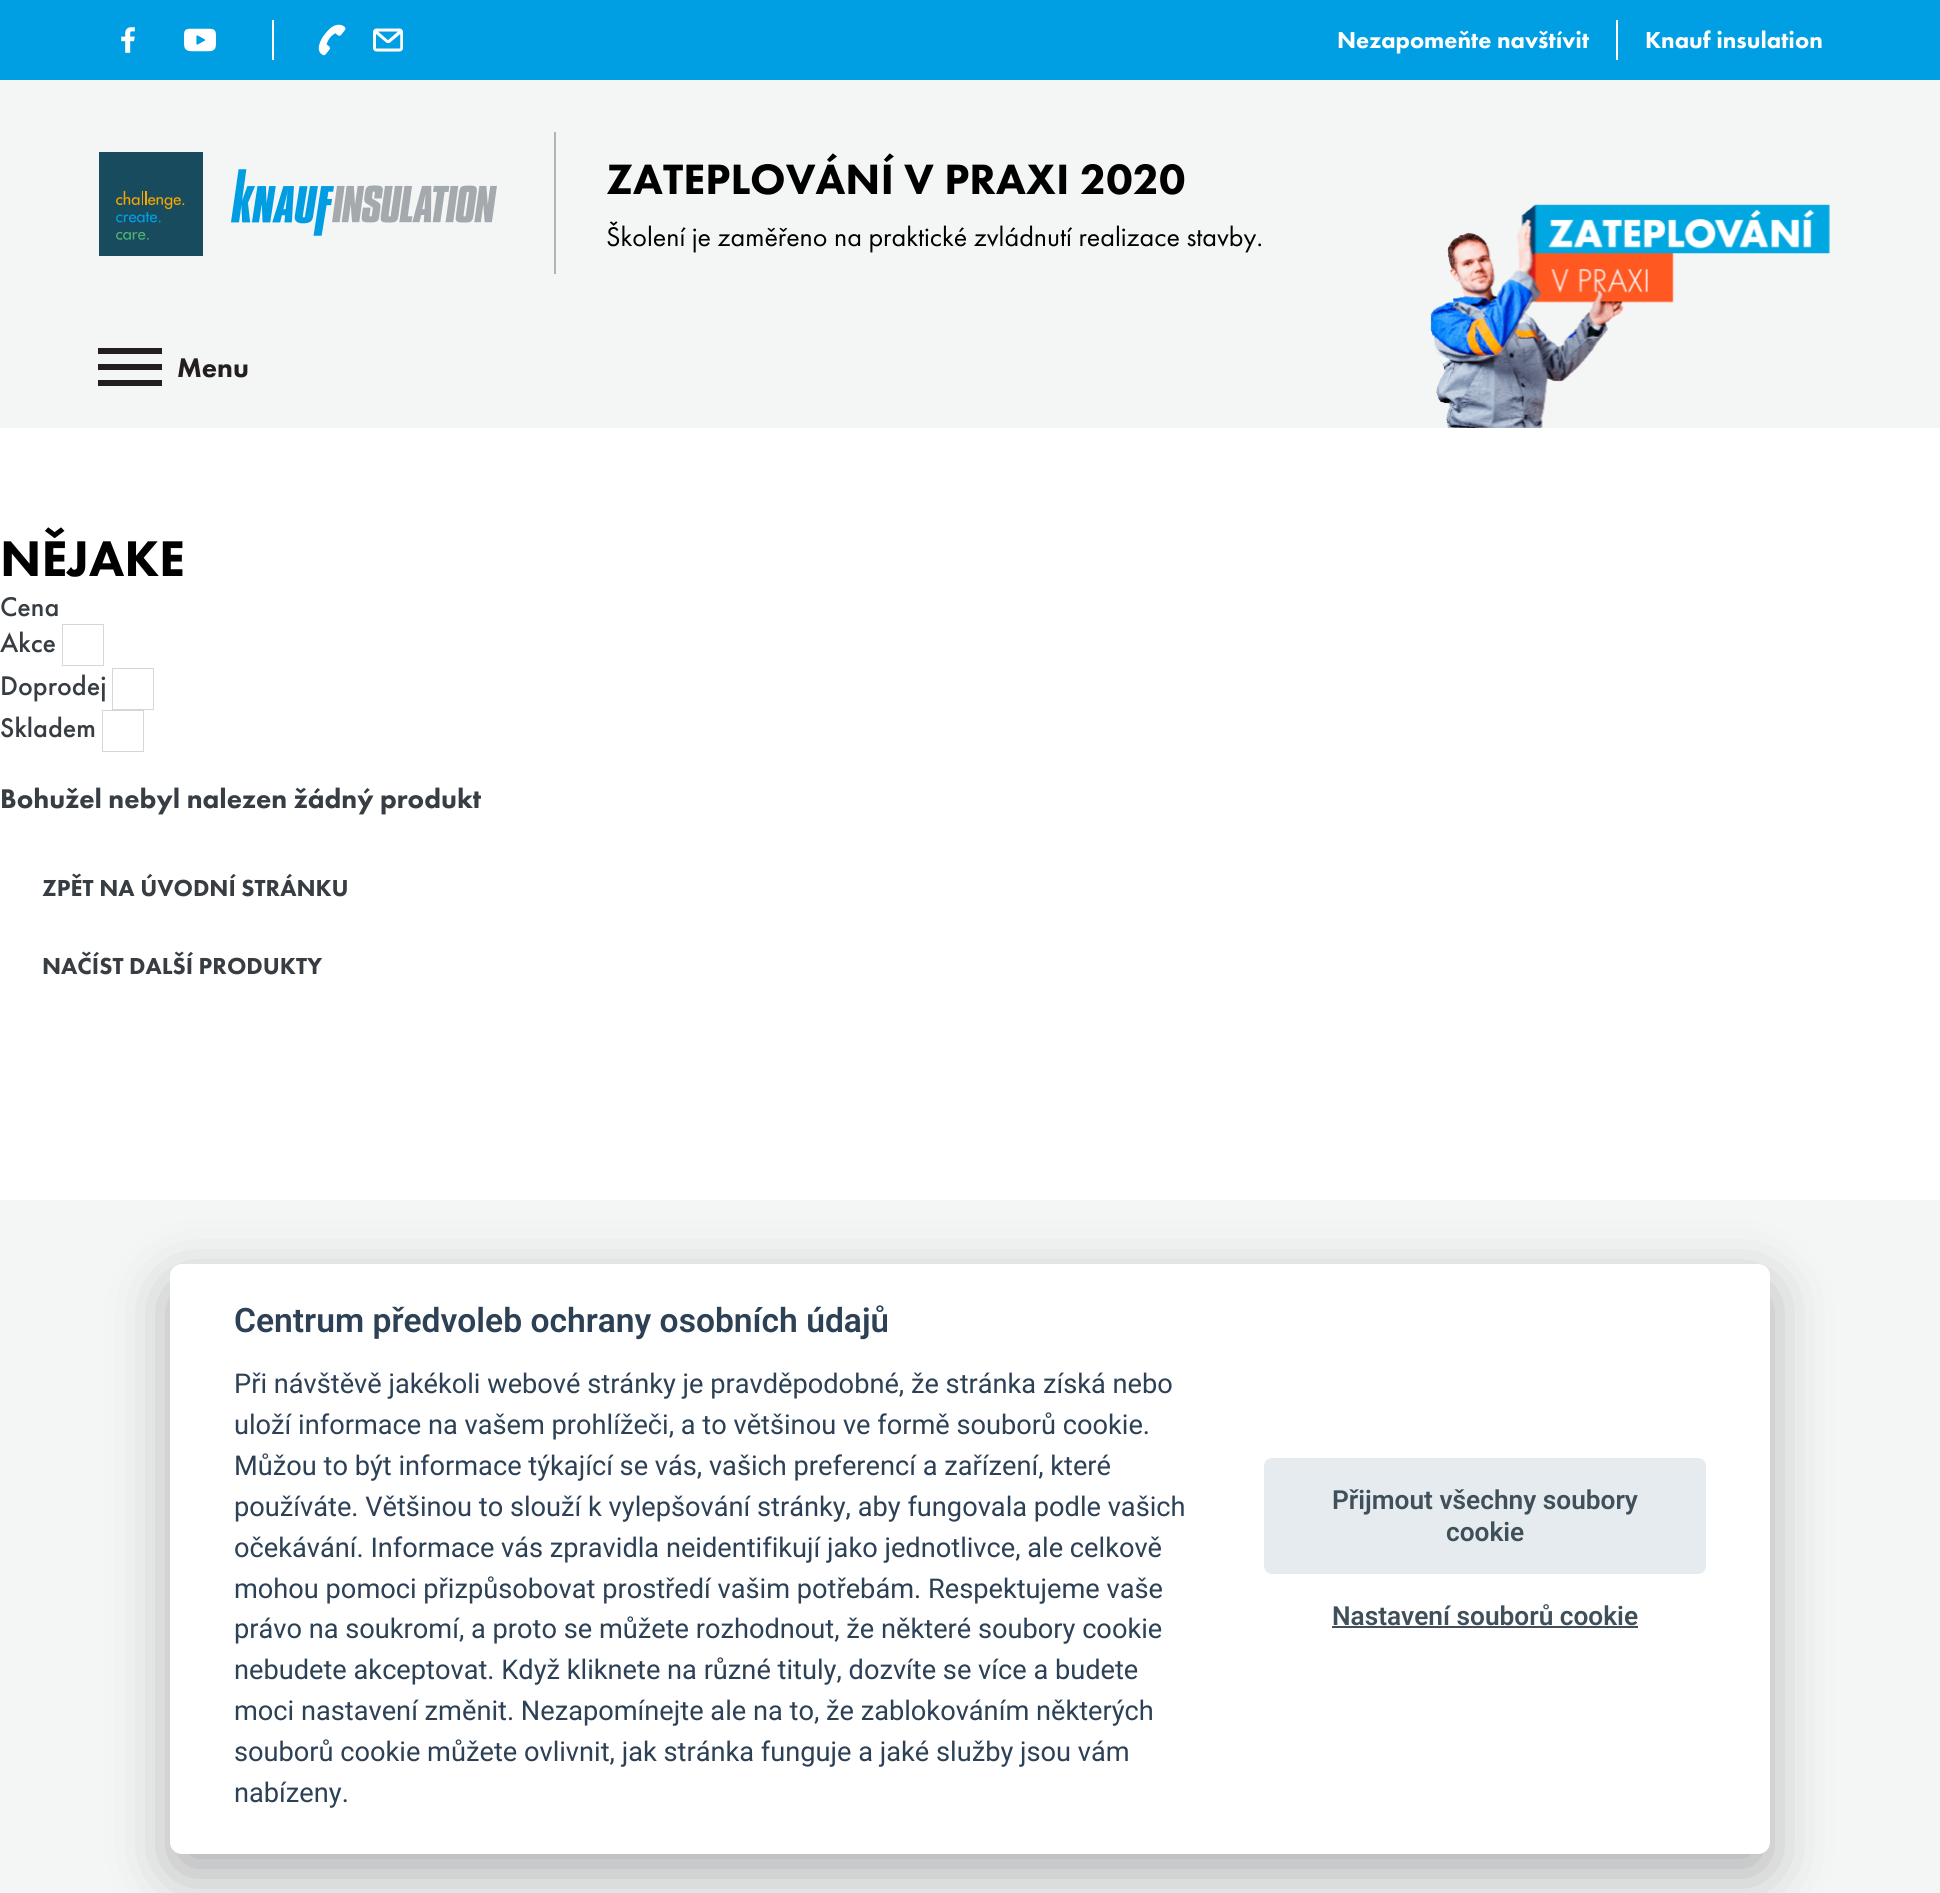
#include <cairo.h>
#include <math.h>
#include <stddef.h>


static void rgb(cairo_t *cr, int r, int g, int b)
{
	cairo_set_source_rgb(cr, r / 255.0, g / 255.0, b / 255.0);
}

static void face(cairo_t *cr, const char *family, double size, int italic, int bold)
{
	cairo_select_font_face(cr, family, italic ? CAIRO_FONT_SLANT_ITALIC : CAIRO_FONT_SLANT_NORMAL,
		bold ? CAIRO_FONT_WEIGHT_BOLD : CAIRO_FONT_WEIGHT_NORMAL);
	cairo_set_font_size(cr, size);
}

static void label(cairo_t *cr, double x, double y, const char *s)
{
	cairo_move_to(cr, x, y);
	cairo_show_text(cr, s);
}

static void rect(cairo_t *cr, double x, double y, double w, double h)
{
	cairo_rectangle(cr, x, y, w, h);
	cairo_fill(cr);
}

static void rrect(cairo_t *cr, double x, double y, double w, double h, double r)
{
	cairo_new_sub_path(cr);
	cairo_arc(cr, x + w - r, y + h - r, r, 0, M_PI / 2);
	cairo_arc(cr, x + r, y + h - r, r, M_PI / 2, M_PI);
	cairo_arc(cr, x + r, y + r, r, M_PI, 1.5 * M_PI);
	cairo_arc(cr, x + w - r, y + r, r, 1.5 * M_PI, 2 * M_PI);
	cairo_close_path(cr);
}

static void soft_shadow(cairo_t *cr, double x, double y, double w, double h, double r, double blur, double alpha)
{
	cairo_push_group_with_content(cr, CAIRO_CONTENT_ALPHA);
	cairo_set_operator(cr, CAIRO_OPERATOR_SOURCE);
	for (int i = 15; i >= -15 && fmin(w, h) + blur * i / 3 > 0; i -= 2) {
		double e = blur * i / 6;
		cairo_set_source_rgba(cr, 0, 0, 0, alpha * erfc((i - 1) / 8.5) / 2);
		rrect(cr, x - e, y - e, w + 2 * e, h + 2 * e, fmax(0, fmin(r + e + blur * .6, fmin(w, h) / 2 + e)));
		cairo_fill(cr);
	}
	cairo_pattern_t *soft = cairo_pop_group(cr);
	cairo_mask(cr, soft);
	cairo_pattern_destroy(soft);
}

static void image(cairo_t *cr, const char *path, double x, double y, double w, double h)
{
	cairo_surface_t *image = cairo_image_surface_create_from_png(path);
	cairo_save(cr);
	cairo_set_source_surface(cr, image, x, y);
	cairo_rectangle(cr, x, y, w, h);
	cairo_fill(cr);
	cairo_restore(cr);
	cairo_surface_destroy(image);
}

static void draw(cairo_t *cr) {
	rgb(cr, 255, 255, 255);
	cairo_paint(cr);
	rgb(cr, 0, 159, 227);
	rect(cr, 0, 0, 1940, 80);
	image(cr, "image0.png", 121, 27, 14, 26);
	image(cr, "image1.png", 184, 28, 32, 24);
	rgb(cr, 255, 255, 255);
	rect(cr, 272, 20, 2, 40);
	image(cr, "image2.png", 318, 24, 28, 32);
	image(cr, "image3.png", 373, 28, 30, 24);
	face(cr, "Futura PT Black", 24, 0, 0);
	label(cr, 1337, 48, "Nezapomeňte navštívit");
	rect(cr, 1616, 20, 2, 40);
	label(cr, 1645, 48, "Knauf insulation");
	rgb(cr, 244, 245, 245);
	rect(cr, 0, 80, 1940, 348);
	image(cr, "image4.png", 99, 152, 398, 104);
	rgb(cr, 173, 181, 186);
	rect(cr, 554, 132, 2, 142);
	face(cr, "Futura PT Black", 44, 0, 0);
	rgb(cr, 0, 0, 0);
	label(cr, 606, 194, "ZATEPLOVÁNÍ V PRAXI 2020");
	face(cr, "Futura PT", 28, 0, 0);
	label(cr, 606, 246, "Školení je zaměřeno na praktické zvládnutí realizace stavby.");
	image(cr, "image5.png", 1430, 204, 400, 224);
	rgb(cr, 35, 31, 32);
	rect(cr, 98, 364, 64, 6);
	rect(cr, 98, 348, 64, 6);
	rect(cr, 98, 380, 64, 6);
	face(cr, "Futura PT Black", 28, 0, 0);
	label(cr, 177, 377, "Menu");
	face(cr, "Futura PT Black", 52, 0, 0);
	rgb(cr, 0, 0, 0);
	label(cr, 0, 576, "NĚJAKE");
	face(cr, "Futura PT Medium", 28, 0, 0);
	rgb(cr, 55, 61, 66);
	label(cr, 0, 616, "Cena");
	label(cr, 0, 652, "Akce");
	cairo_rectangle(cr, 62.5, 624.5, 41, 41);
	rgb(cr, 214, 214, 214);
	cairo_set_line_width(cr, 1);
	cairo_stroke(cr);
	rgb(cr, 55, 61, 66);
	label(cr, 0, 695, "Doprodej");
	cairo_rectangle(cr, 112.5, 668.5, 41, 41);
	rgb(cr, 214, 214, 214);
	cairo_stroke(cr);
	rgb(cr, 55, 61, 66);
	label(cr, 0, 737, "Skladem");
	cairo_rectangle(cr, 102.5, 710.5, 41, 41);
	rgb(cr, 214, 214, 214);
	cairo_stroke(cr);
	face(cr, "Futura PT Black", 28, 0, 0);
	rgb(cr, 55, 61, 66);
	label(cr, 0, 808, "Bohužel nebyl nalezen žádný produkt");
	face(cr, "Futura PT Black", 24, 0, 0);
	label(cr, 42, 896, "ZPĚT NA ÚVODNÍ STRÁNKU");
	label(cr, 42, 974, "NAČÍST DALŠÍ PRODUKTY");
	rgb(cr, 244, 245, 245);
	rect(cr, 0, 1200, 1940, 693);
	rgb(cr, 2, 2, 3);
	soft_shadow(cr, 170, 1284, 1600, 590, 12, 30, 0.28);
	rgb(cr, 255, 255, 255);
	rrect(cr, 170, 1264, 1600, 590, 12);
	cairo_fill(cr);
	face(cr, "Roboto SemiBold", 33.6, 0, 0);
	rgb(cr, 45, 65, 86);
	label(cr, 234, 1332, "Centrum předvoleb ochrany osobních údajů");
	face(cr, "Roboto", 27.2, 0, 0);
	label(cr, 234, 1393, "Při návštěvě jakékoli webové stránky je pravděpodobné, že stránka získá nebo");
	label(cr, 234, 1434, "uloží informace na vašem prohlížeči, a to většinou ve formě souborů cookie.");
	label(cr, 234, 1475, "Můžou to být informace týkající se vás, vašich preferencí a zařízení, které");
	label(cr, 234, 1516, "používáte. Většinou to slouží k vylepšování stránky, aby fungovala podle vašich");
	label(cr, 234, 1557, "očekávání. Informace vás zpravidla neidentifikují jako jednotlivce, ale celkově");
	label(cr, 234, 1598, "mohou pomoci přizpůsobovat prostředí vašim potřebám. Respektujeme vaše");
	label(cr, 234, 1638, "právo na soukromí, a proto se můžete rozhodnout, že některé soubory cookie");
	label(cr, 234, 1679, "nebudete akceptovat. Když kliknete na různé tituly, dozvíte se více a budete");
	label(cr, 234, 1720, "moci nastavení změnit. Nezapomínejte ale na to, že zablokováním některých");
	label(cr, 234, 1761, "souborů cookie můžete ovlivnit, jak stránka funguje a jaké služby jsou vám");
	label(cr, 234, 1802, "nabízeny.");
	rgb(cr, 229, 235, 239);
	rrect(cr, 1264, 1458, 442, 116, 8);
	cairo_fill(cr);
	face(cr, "Roboto SemiBold", 26.25, 0, 0);
	rgb(cr, 64, 80, 90);
	label(cr, 1332, 1509, "Přijmout všechny soubory");
	label(cr, 1446, 1541, "cookie");
	label(cr, 1332, 1625, "Nastavení souborů cookie");
	rect(cr, 1332, 1626, 306, 2);
}

int main(void) {
	cairo_surface_t *surface = cairo_image_surface_create(CAIRO_FORMAT_RGB24, 1940, 1893);
	cairo_t *cr = cairo_create(surface);
	cairo_font_options_t *options = cairo_font_options_create();
	cairo_font_options_set_hint_metrics(options, CAIRO_HINT_METRICS_OFF);
	cairo_font_options_set_hint_style(options, CAIRO_HINT_STYLE_NONE);
	cairo_set_font_options(cr, options);
	cairo_set_miter_limit(cr, 4);
	draw(cr);
	cairo_surface_write_to_png(surface, "render.png");
	cairo_font_options_destroy(options);
	cairo_destroy(cr);
	cairo_surface_destroy(surface);
	return 0;
}
